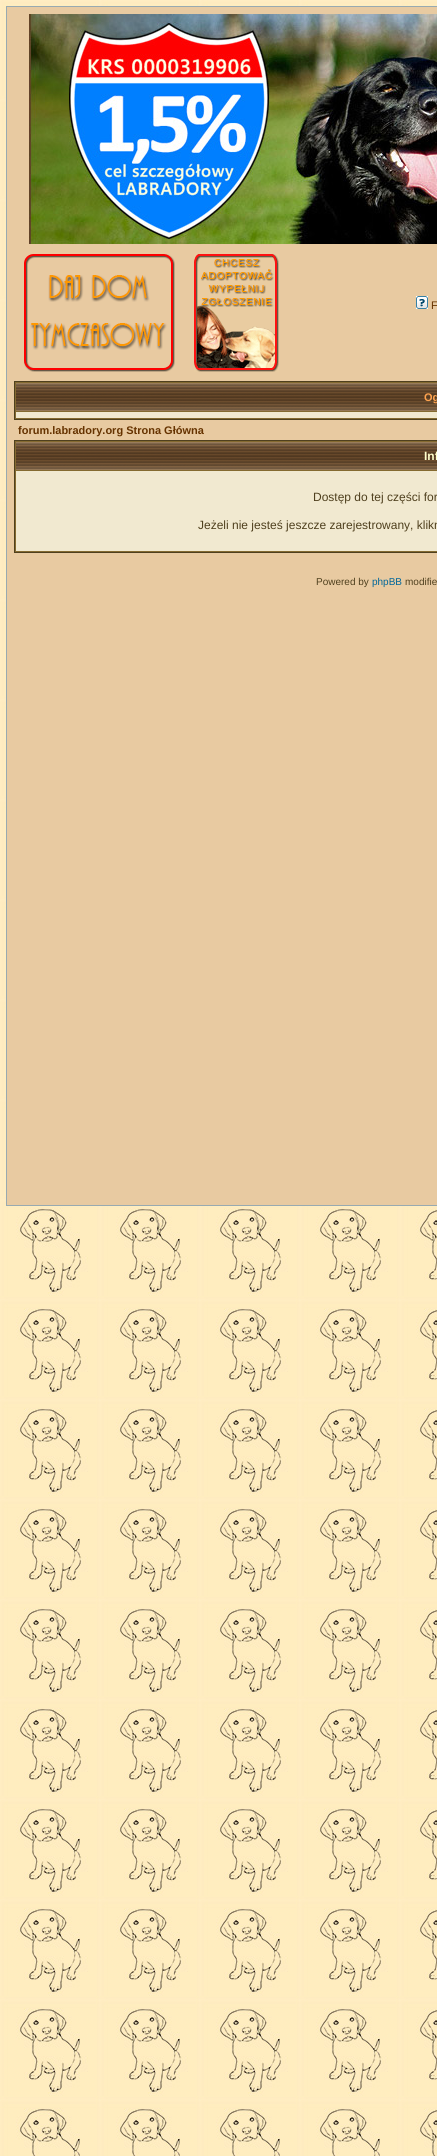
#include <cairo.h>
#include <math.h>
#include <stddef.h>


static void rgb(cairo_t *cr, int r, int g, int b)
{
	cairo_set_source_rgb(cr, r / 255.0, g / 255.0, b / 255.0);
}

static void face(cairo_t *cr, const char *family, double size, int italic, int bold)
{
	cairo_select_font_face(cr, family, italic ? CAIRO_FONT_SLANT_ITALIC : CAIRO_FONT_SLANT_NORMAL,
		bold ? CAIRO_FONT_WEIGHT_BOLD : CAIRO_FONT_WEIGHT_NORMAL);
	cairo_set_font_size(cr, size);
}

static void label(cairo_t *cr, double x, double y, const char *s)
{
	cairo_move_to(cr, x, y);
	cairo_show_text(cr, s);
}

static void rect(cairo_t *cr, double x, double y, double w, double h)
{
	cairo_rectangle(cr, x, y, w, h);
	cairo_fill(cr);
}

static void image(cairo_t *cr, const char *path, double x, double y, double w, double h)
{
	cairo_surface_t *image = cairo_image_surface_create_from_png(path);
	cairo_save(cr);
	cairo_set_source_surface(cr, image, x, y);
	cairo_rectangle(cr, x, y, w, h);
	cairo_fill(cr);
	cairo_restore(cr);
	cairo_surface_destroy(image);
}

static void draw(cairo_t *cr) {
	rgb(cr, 255, 255, 255);
	cairo_paint(cr);
	image(cr, "image0.png", 0, 0, 437, 2156);
	rgb(cr, 232, 202, 161);
	cairo_rectangle(cr, 6.5, 6.5, 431, 1199);
	cairo_fill_preserve(cr);
	rgb(cr, 152, 170, 177);
	cairo_set_line_width(cr, 1);
	cairo_stroke(cr);
	image(cr, "image1.png", 29, 14, 408, 230);
	image(cr, "image2.png", 24, 254, 151, 118);
	image(cr, "image3.png", 194, 254, 85, 118);
	image(cr, "image4.png", 416, 296, 12, 13);
	face(cr, "Liberation Sans", 11, 0, 0);
	rgb(cr, 102, 51, 0);
	label(cr, 431, 309, "F");
	rgb(cr, 132, 106, 48);
	cairo_rectangle(cr, 14.5, 381.5, 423, 38);
	cairo_fill_preserve(cr);
	rgb(cr, 79, 64, 30);
	cairo_stroke(cr);
	image(cr, "image5.png", 16, 383, 421, 28);
	face(cr, "Liberation Sans", 11, 0, 1);
	rgb(cr, 255, 163, 79);
	label(cr, 424, 401, "Og");
	rgb(cr, 241, 233, 208);
	rect(cr, 16, 412, 421, 6);
	rgb(cr, 102, 51, 0);
	label(cr, 18, 434, "forum.labradory.org Strona Główna");
	rgb(cr, 132, 106, 48);
	cairo_rectangle(cr, 14.5, 440.5, 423, 112);
	cairo_fill_preserve(cr);
	rgb(cr, 79, 64, 30);
	cairo_stroke(cr);
	image(cr, "image5.png", 16, 442, 421, 28);
	face(cr, "Liberation Sans", 12, 0, 1);
	rgb(cr, 255, 255, 204);
	label(cr, 424, 460, "Inf");
	rgb(cr, 241, 233, 208);
	rect(cr, 16, 471, 421, 80);
	face(cr, "Liberation Sans", 12, 0, 0);
	rgb(cr, 79, 64, 30);
	label(cr, 313, 501, "Dostęp do tej części for");
	label(cr, 198, 529, "Jeżeli nie jesteś jeszcze zarejestrowany, klikn");
	face(cr, "Liberation Sans", 10, 0, 0);
	label(cr, 316, 585, "Powered by");
	rgb(cr, 0, 102, 153);
	label(cr, 372, 585, "phpBB");
	rgb(cr, 79, 64, 30);
	label(cr, 405, 585, "modifie");
}

int main(void) {
	cairo_surface_t *surface = cairo_image_surface_create(CAIRO_FORMAT_RGB24, 437, 2156);
	cairo_t *cr = cairo_create(surface);
	cairo_font_options_t *options = cairo_font_options_create();
	cairo_font_options_set_hint_metrics(options, CAIRO_HINT_METRICS_OFF);
	cairo_font_options_set_hint_style(options, CAIRO_HINT_STYLE_NONE);
	cairo_set_font_options(cr, options);
	cairo_set_miter_limit(cr, 4);
	draw(cr);
	cairo_surface_write_to_png(surface, "render.png");
	cairo_font_options_destroy(options);
	cairo_destroy(cr);
	cairo_surface_destroy(surface);
	return 0;
}
